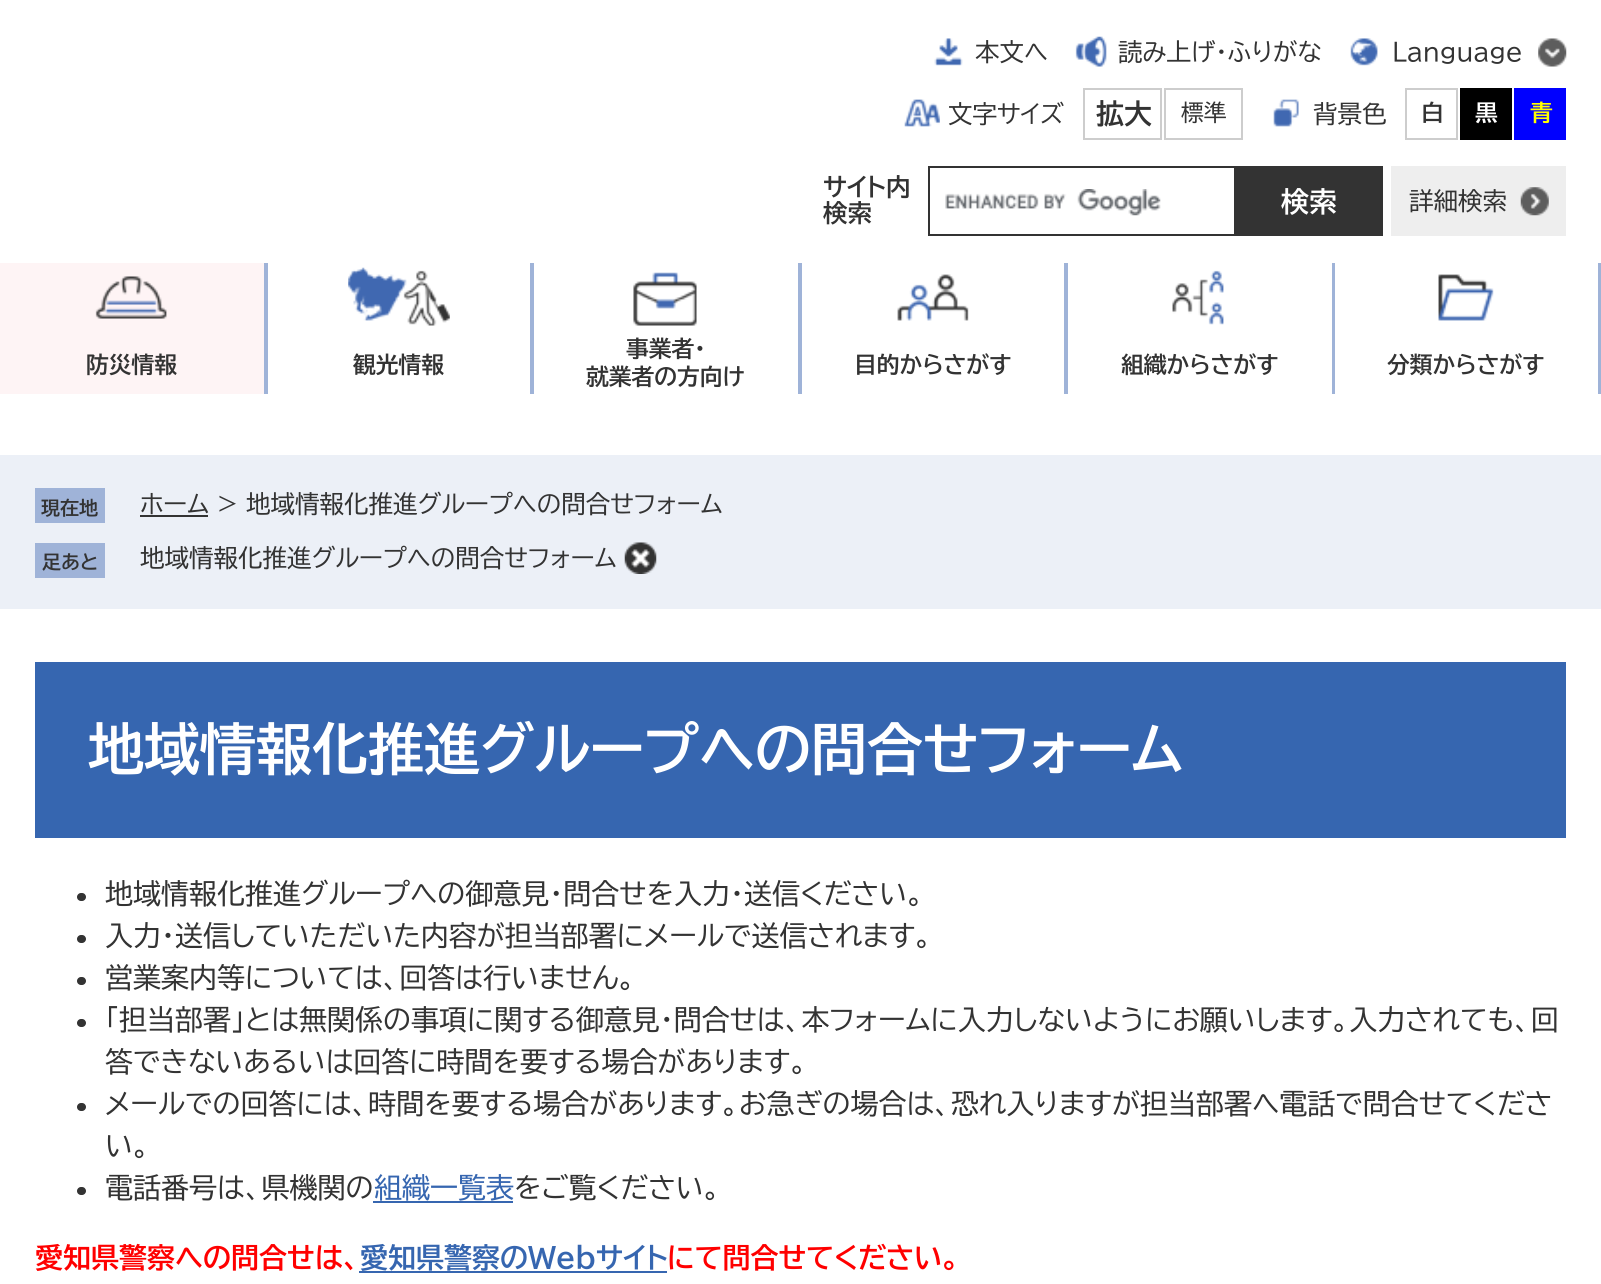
#include <cairo.h>
#include <math.h>
#include <stddef.h>


static void rgb(cairo_t *cr, int r, int g, int b)
{
	cairo_set_source_rgb(cr, r / 255.0, g / 255.0, b / 255.0);
}

static void face(cairo_t *cr, const char *family, double size, int italic, int bold)
{
	cairo_select_font_face(cr, family, italic ? CAIRO_FONT_SLANT_ITALIC : CAIRO_FONT_SLANT_NORMAL,
		bold ? CAIRO_FONT_WEIGHT_BOLD : CAIRO_FONT_WEIGHT_NORMAL);
	cairo_set_font_size(cr, size);
}

static void label(cairo_t *cr, double x, double y, const char *s)
{
	cairo_move_to(cr, x, y);
	cairo_show_text(cr, s);
}

static void rect(cairo_t *cr, double x, double y, double w, double h)
{
	cairo_rectangle(cr, x, y, w, h);
	cairo_fill(cr);
}

static void rrect(cairo_t *cr, double x, double y, double w, double h, double r)
{
	cairo_new_sub_path(cr);
	cairo_arc(cr, x + w - r, y + h - r, r, 0, M_PI / 2);
	cairo_arc(cr, x + r, y + h - r, r, M_PI / 2, M_PI);
	cairo_arc(cr, x + r, y + r, r, M_PI, 1.5 * M_PI);
	cairo_arc(cr, x + w - r, y + r, r, 1.5 * M_PI, 2 * M_PI);
	cairo_close_path(cr);
}

static void image(cairo_t *cr, const char *path, double x, double y, double w, double h)
{
	cairo_surface_t *image = cairo_image_surface_create_from_png(path);
	cairo_save(cr);
	cairo_set_source_surface(cr, image, x, y);
	cairo_rectangle(cr, x, y, w, h);
	cairo_fill(cr);
	cairo_restore(cr);
	cairo_surface_destroy(image);
}

static void draw(cairo_t *cr) {
	rgb(cr, 255, 255, 255);
	cairo_paint(cr);
	image(cr, "image0.png", 934, 38, 29, 28);
	face(cr, "BIZ UDPGothic", 24.5, 0, 0);
	rgb(cr, 51, 51, 51);
	label(cr, 975, 61, "本文へ");
	image(cr, "image1.png", 1075, 36, 32, 31);
	label(cr, 1118, 61, "読み上げ・ふりがな");
	image(cr, "image2.png", 1350, 38, 217, 29);
	label(cr, 1392, 61, "Language");
	image(cr, "image3.png", 904, 99, 36, 28);
	label(cr, 948, 123, "文字サイズ");
	cairo_rectangle(cr, 1084, 89, 77, 50);
	rgb(cr, 205, 205, 205);
	cairo_stroke(cr);
	face(cr, "BIZ UDPGothic", 28, 0, 1);
	rgb(cr, 51, 51, 51);
	label(cr, 1096, 124, "拡大");
	cairo_rectangle(cr, 1165, 89, 77, 50);
	rgb(cr, 205, 205, 205);
	cairo_stroke(cr);
	face(cr, "BIZ UDPGothic", 22.75, 0, 0);
	rgb(cr, 51, 51, 51);
	label(cr, 1181, 121, "標準");
	image(cr, "image4.png", 1273, 99, 26, 28);
	face(cr, "BIZ UDPGothic", 24.5, 0, 0);
	label(cr, 1313, 123, "背景色");
	cairo_rectangle(cr, 1406, 89, 51, 50);
	rgb(cr, 205, 205, 205);
	cairo_stroke(cr);
	face(cr, "BIZ UDPGothic", 22.75, 0, 1);
	rgb(cr, 51, 51, 51);
	label(cr, 1421, 121, "白");
	rgb(cr, 0, 0, 0);
	rect(cr, 1460, 88, 52, 52);
	rgb(cr, 255, 255, 255);
	label(cr, 1475, 121, "黒");
	rgb(cr, 0, 0, 255);
	rect(cr, 1514, 88, 52, 52);
	rgb(cr, 255, 255, 0);
	label(cr, 1530, 121, "青");
	face(cr, "BIZ UDPGothic", 24.5, 0, 1);
	rgb(cr, 51, 51, 51);
	label(cr, 823, 196, "サイト内");
	label(cr, 823, 222, "検索");
	image(cr, "image5.png", 945, 189, 216, 27);
	cairo_rectangle(cr, 929, 167, 306, 68);
	cairo_stroke(cr);
	rect(cr, 1236, 166, 147, 70);
	face(cr, "BIZ UDPGothic", 28, 0, 1);
	rgb(cr, 255, 255, 255);
	label(cr, 1281, 212, "検索");
	rgb(cr, 238, 238, 238);
	rect(cr, 1391, 166, 175, 70);
	image(cr, "image6.png", 1520, 187, 29, 29);
	face(cr, "BIZ UDPGothic", 24.5, 0, 0);
	rgb(cr, 51, 51, 51);
	label(cr, 1409, 210, "詳細検索");
	rgb(cr, 159, 179, 216);
	rect(cr, 264, 263, 4, 131);
	rgb(cr, 254, 244, 245);
	rect(cr, 0, 263, 264, 131);
	image(cr, "image7.png", 95, 276, 72, 43);
	face(cr, "BIZ UDPGothic", 22.75, 0, 1);
	rgb(cr, 51, 51, 51);
	label(cr, 86, 373, "防災情報");
	rgb(cr, 159, 179, 216);
	rect(cr, 530, 263, 4, 131);
	image(cr, "image8.png", 348, 267, 102, 59);
	rgb(cr, 51, 51, 51);
	label(cr, 353, 373, "観光情報");
	rgb(cr, 159, 179, 216);
	rect(cr, 798, 263, 4, 131);
	image(cr, "image9.png", 633, 272, 64, 54);
	rgb(cr, 51, 51, 51);
	label(cr, 626, 357, "事業者・");
	label(cr, 586, 385, "就業者の方向け");
	rgb(cr, 159, 179, 216);
	rect(cr, 1064, 263, 4, 131);
	image(cr, "image10.png", 897, 274, 72, 47);
	rgb(cr, 51, 51, 51);
	label(cr, 854, 373, "目的からさがす");
	rgb(cr, 159, 179, 216);
	rect(cr, 1332, 263, 3, 131);
	image(cr, "image11.png", 1172, 270, 52, 55);
	rgb(cr, 51, 51, 51);
	label(cr, 1121, 373, "組織からさがす");
	rgb(cr, 159, 179, 216);
	rect(cr, 1598, 263, 3, 131);
	image(cr, "image12.png", 1438, 274, 56, 47);
	rgb(cr, 51, 51, 51);
	label(cr, 1387, 373, "分類からさがす");
	rgb(cr, 236, 240, 247);
	rect(cr, 0, 455, 1601, 154);
	rgb(cr, 159, 179, 216);
	rect(cr, 35, 488, 70, 35);
	face(cr, "BIZ UDPGothic", 19, 0, 1);
	rgb(cr, 51, 51, 51);
	label(cr, 41, 515, "現在地");
	rect(cr, 140, 515, 68, 2);
	face(cr, "BIZ UDPGothic", 24.5, 0, 0);
	label(cr, 140, 513, "ホーム > 地域情報化推進グループへの問合せフォーム");
	rgb(cr, 159, 179, 216);
	rect(cr, 35, 543, 70, 35);
	face(cr, "BIZ UDPGothic", 19, 0, 1);
	rgb(cr, 51, 51, 51);
	label(cr, 42, 569, "足あと");
	face(cr, "BIZ UDPGothic", 24.5, 0, 0);
	label(cr, 140, 567, "地域情報化推進グループへの問合せフォーム");
	image(cr, "image13.png", 624, 542, 33, 32);
	rgb(cr, 54, 102, 176);
	rect(cr, 35, 662, 1531, 176);
	face(cr, "BIZ UDPGothic", 56, 0, 1);
	rgb(cr, 255, 255, 255);
	label(cr, 88, 770, "地域情報化推進グループへの問合せフォーム");
	rgb(cr, 51, 51, 51);
	rrect(cr, 77, 893, 9, 8, 4);
	cairo_fill(cr);
	face(cr, "BIZ UDPGothic", 28, 0, 0);
	label(cr, 105, 904, "地域情報化推進グループへの御意見・問合せを入力・送信ください。");
	rrect(cr, 77, 935, 9, 8, 4);
	cairo_fill(cr);
	label(cr, 105, 946, "入力・送信していただいた内容が担当部署にメールで送信されます。");
	rrect(cr, 77, 977, 9, 8, 4);
	cairo_fill(cr);
	label(cr, 105, 988, "営業案内等については、回答は行いません。");
	rrect(cr, 77, 1019, 9, 8, 4);
	cairo_fill(cr);
	label(cr, 105, 1030, "「担当部署」とは無関係の事項に関する御意見・問合せは、本フォームに入力しないようにお願いします。入力されても、回");
	label(cr, 105, 1072, "答できないあるいは回答に時間を要する場合があります。");
	rrect(cr, 77, 1103, 9, 8, 4);
	cairo_fill(cr);
	label(cr, 105, 1114, "メールでの回答には、時間を要する場合があります。お急ぎの場合は、恐れ入りますが担当部署へ電話で問合せてくださ");
	label(cr, 105, 1156, "い。");
	rrect(cr, 77, 1187, 9, 8, 4);
	cairo_fill(cr);
	label(cr, 105, 1198, "電話番号は、県機関の");
	rgb(cr, 54, 102, 176);
	label(cr, 374, 1198, "組織一覧表");
	rect(cr, 373, 1201, 140, 2);
	rgb(cr, 51, 51, 51);
	label(cr, 514, 1198, "をご覧ください。");
	face(cr, "BIZ UDPGothic", 28, 0, 1);
	rgb(cr, 255, 0, 0);
	label(cr, 35, 1268, "愛知県警察への問合せは、");
	rgb(cr, 54, 102, 176);
	label(cr, 360, 1268, "愛知県警察のWebサイト");
	rect(cr, 359, 1271, 308, 2);
	rgb(cr, 255, 0, 0);
	label(cr, 667, 1268, "にて問合せてください。");
}

int main(void) {
	cairo_surface_t *surface = cairo_image_surface_create(CAIRO_FORMAT_RGB24, 1601, 1284);
	cairo_t *cr = cairo_create(surface);
	cairo_font_options_t *options = cairo_font_options_create();
	cairo_font_options_set_hint_metrics(options, CAIRO_HINT_METRICS_OFF);
	cairo_font_options_set_hint_style(options, CAIRO_HINT_STYLE_NONE);
	cairo_set_font_options(cr, options);
	cairo_set_miter_limit(cr, 4);
	draw(cr);
	cairo_surface_write_to_png(surface, "render.png");
	cairo_font_options_destroy(options);
	cairo_destroy(cr);
	cairo_surface_destroy(surface);
	return 0;
}
